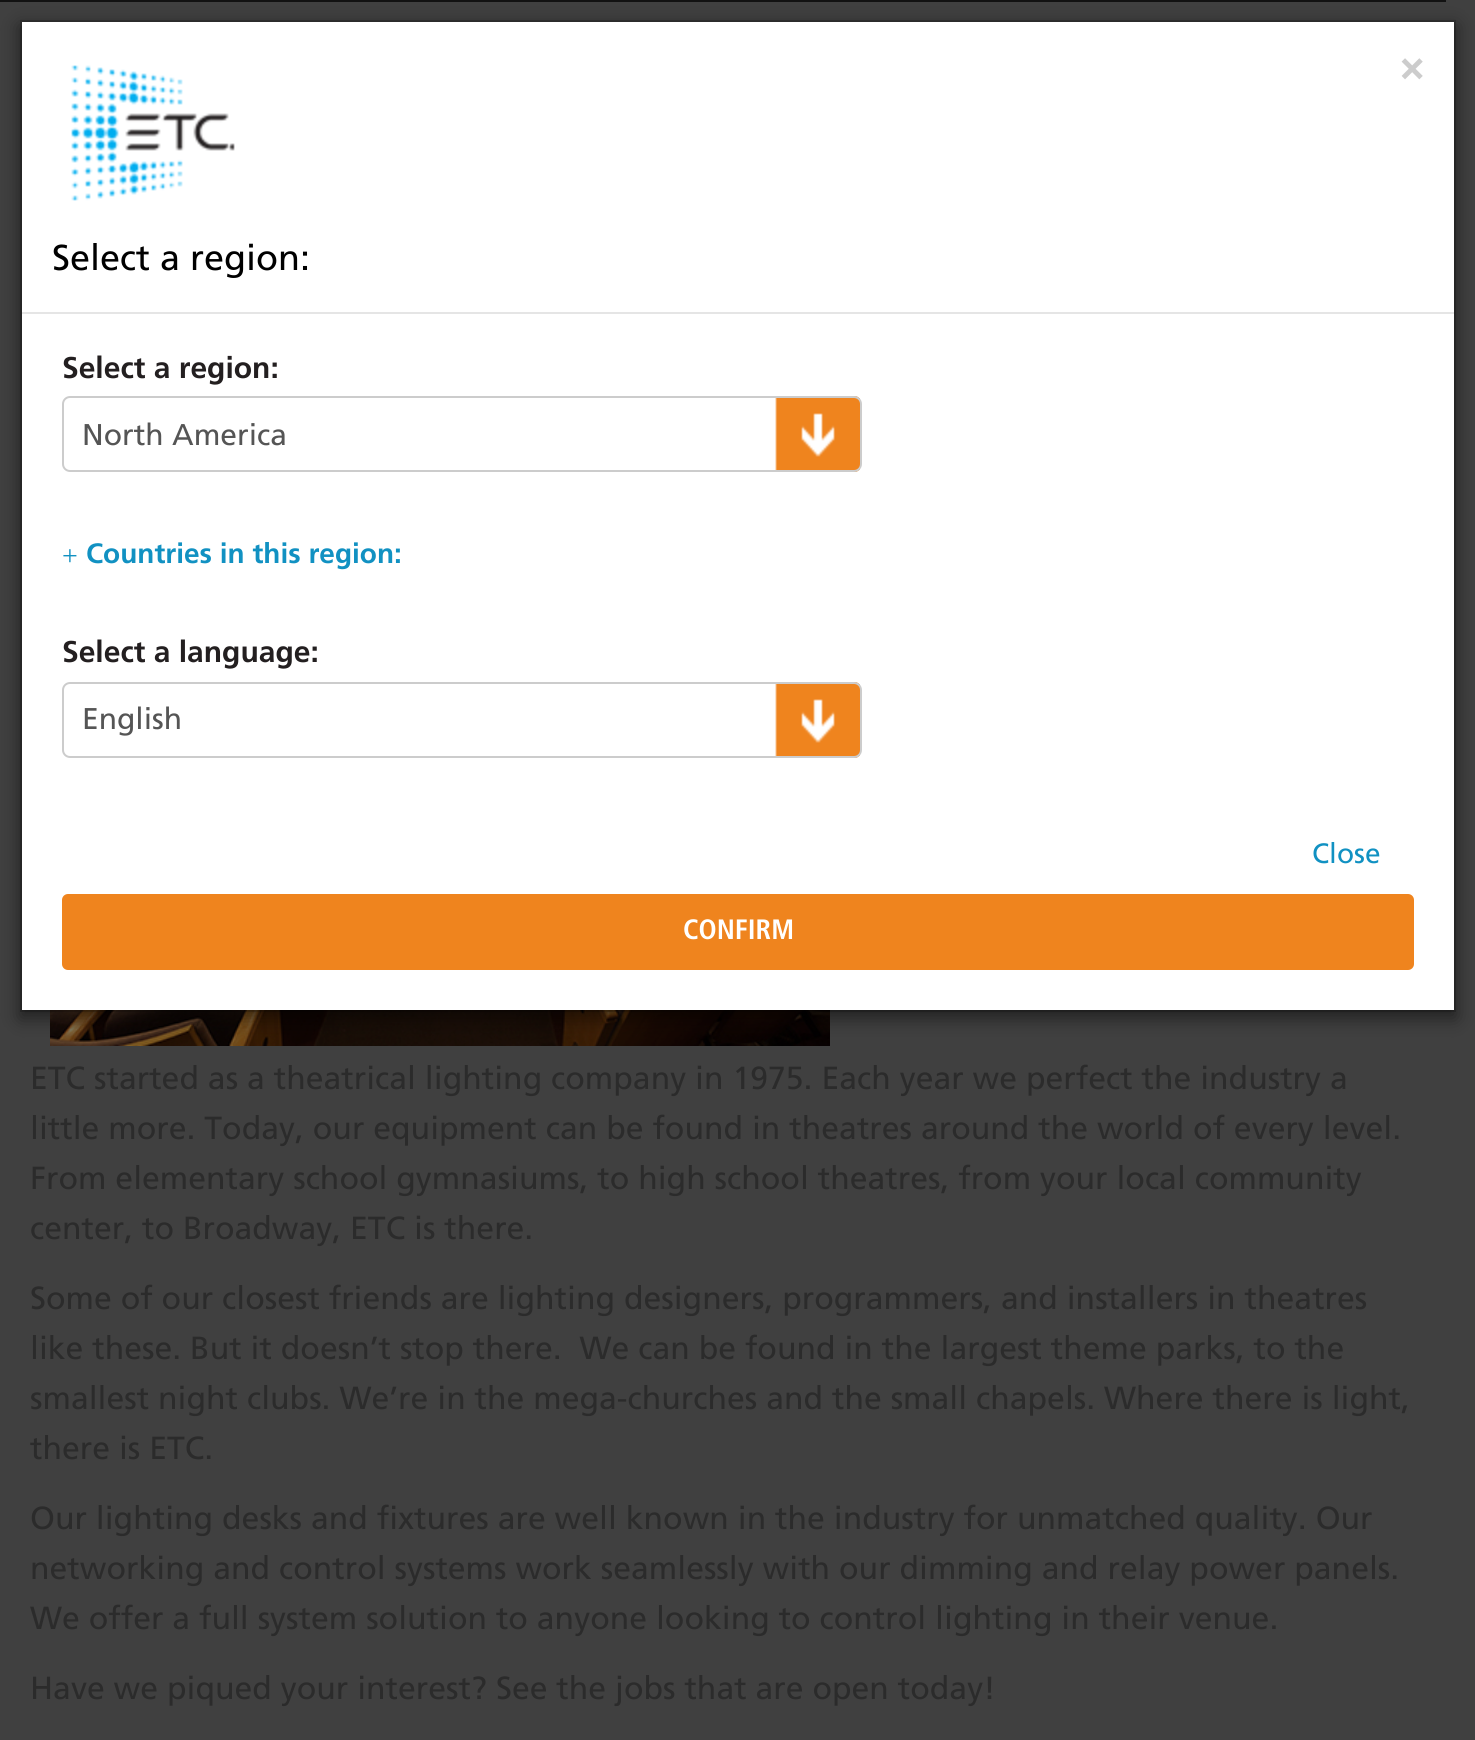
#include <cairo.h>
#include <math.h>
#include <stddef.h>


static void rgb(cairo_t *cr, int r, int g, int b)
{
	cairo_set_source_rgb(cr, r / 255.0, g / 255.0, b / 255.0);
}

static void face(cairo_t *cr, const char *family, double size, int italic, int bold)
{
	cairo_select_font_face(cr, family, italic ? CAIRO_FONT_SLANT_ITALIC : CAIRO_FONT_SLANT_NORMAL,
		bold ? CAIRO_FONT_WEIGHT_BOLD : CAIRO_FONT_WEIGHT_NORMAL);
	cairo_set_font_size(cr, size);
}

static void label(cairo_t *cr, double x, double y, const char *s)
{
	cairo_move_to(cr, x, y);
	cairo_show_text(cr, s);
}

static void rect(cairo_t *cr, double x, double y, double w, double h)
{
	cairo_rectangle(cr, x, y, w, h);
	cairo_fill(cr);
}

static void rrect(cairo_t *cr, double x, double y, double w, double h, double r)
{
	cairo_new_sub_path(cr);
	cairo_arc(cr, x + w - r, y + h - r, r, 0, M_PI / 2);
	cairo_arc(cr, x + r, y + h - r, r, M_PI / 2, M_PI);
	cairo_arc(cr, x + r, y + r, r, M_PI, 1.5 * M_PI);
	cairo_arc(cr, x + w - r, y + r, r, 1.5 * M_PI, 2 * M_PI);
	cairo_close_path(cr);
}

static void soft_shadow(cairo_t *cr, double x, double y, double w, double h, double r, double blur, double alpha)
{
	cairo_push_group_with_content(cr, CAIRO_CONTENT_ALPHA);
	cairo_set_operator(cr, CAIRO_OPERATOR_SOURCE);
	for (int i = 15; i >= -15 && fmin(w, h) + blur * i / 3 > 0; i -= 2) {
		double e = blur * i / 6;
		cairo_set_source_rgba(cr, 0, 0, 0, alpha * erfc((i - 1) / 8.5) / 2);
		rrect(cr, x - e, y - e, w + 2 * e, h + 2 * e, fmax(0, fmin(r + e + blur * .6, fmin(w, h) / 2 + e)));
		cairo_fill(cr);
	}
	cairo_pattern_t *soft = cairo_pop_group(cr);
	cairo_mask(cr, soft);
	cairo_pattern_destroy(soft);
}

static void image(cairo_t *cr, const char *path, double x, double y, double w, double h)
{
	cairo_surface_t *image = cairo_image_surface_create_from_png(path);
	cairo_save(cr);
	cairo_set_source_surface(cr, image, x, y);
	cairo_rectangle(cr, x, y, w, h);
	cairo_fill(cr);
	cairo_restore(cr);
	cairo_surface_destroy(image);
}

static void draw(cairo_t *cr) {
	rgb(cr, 64, 64, 64);
	cairo_paint(cr);
	rgb(cr, 18, 18, 18);
	rect(cr, 0, 0, 1446, 2);
	image(cr, "image2.png", 50, 1010, 780, 36);
	rgb(cr, 0, 0, 0);
	soft_shadow(cr, 20, 26, 1436, 992, 0, 9, 0.5);
	rgb(cr, 255, 255, 255);
	rect(cr, 22, 22, 1432, 988);
	cairo_rectangle(cr, 21, 21, 1434, 990);
	cairo_set_source_rgba(cr, 0, 0, 0, 0.2);
	cairo_stroke(cr);
	rgb(cr, 229, 229, 229);
	rect(cr, 22, 312, 1432, 2);
	image(cr, "image0.png", 71, 65, 164, 136);
	face(cr, "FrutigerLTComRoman", 42, 0, 1);
	rgb(cr, 204, 204, 204);
	label(cr, 1399, 80, "×");
	face(cr, "FrutigerLTComRoman", 36, 0, 0);
	rgb(cr, 0, 0, 0);
	label(cr, 52, 270, "Select a region:");
	face(cr, "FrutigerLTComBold", 30, 0, 0);
	rgb(cr, 35, 31, 32);
	label(cr, 62, 378, "Select a region:");
	image(cr, "image1.png", 775, 396, 85, 76);
	rrect(cr, 63, 397, 798, 74, 7);
	rgb(cr, 204, 204, 204);
	cairo_stroke(cr);
	face(cr, "FrutigerLTComRoman", 30, 0, 0);
	rgb(cr, 85, 85, 85);
	label(cr, 82, 445, "North America");
	face(cr, "Liberation Serif", 28, 0, 0);
	rgb(cr, 17, 145, 194);
	label(cr, 62, 565, "+");
	face(cr, "FrutigerLTComBold", 28, 0, 0);
	label(cr, 86, 563, "Countries in this region:");
	face(cr, "FrutigerLTComBold", 30, 0, 0);
	rgb(cr, 35, 31, 32);
	label(cr, 62, 662, "Select a language:");
	image(cr, "image1.png", 775, 682, 85, 76);
	rrect(cr, 63, 683, 798, 74, 7);
	rgb(cr, 204, 204, 204);
	cairo_stroke(cr);
	face(cr, "FrutigerLTComRoman", 30, 0, 0);
	rgb(cr, 85, 85, 85);
	label(cr, 82, 729, "English");
	face(cr, "FrutigerLTComRoman", 28, 0, 0);
	rgb(cr, 17, 145, 194);
	label(cr, 1312, 863, "Close");
	rgb(cr, 239, 132, 30);
	rrect(cr, 63, 895, 1350, 74, 5);
	cairo_fill_preserve(cr);
	cairo_stroke(cr);
	face(cr, "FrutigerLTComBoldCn", 28, 0, 0);
	rgb(cr, 255, 255, 255);
	label(cr, 683, 939, "CONFIRM");
	face(cr, "FrutigerLTComRoman", 32, 0, 0);
	rgb(cr, 43, 43, 43);
	label(cr, 30, 1089, "ETC started as a theatrical lighting company in 1975. Each year we perfect the industry a");
	label(cr, 30, 1139, "little more. Today, our equipment can be found in theatres around the world of every level.");
	label(cr, 30, 1189, "From elementary school gymnasiums, to high school theatres, from your local community");
	label(cr, 30, 1239, "center, to Broadway, ETC is there.");
	label(cr, 30, 1309, "Some of our closest friends are lighting designers, programmers, and installers in theatres");
	label(cr, 30, 1359, "like these. But it doesn’t stop there.  We can be found in the largest theme parks, to the");
	label(cr, 30, 1409, "smallest night clubs. We’re in the mega-churches and the small chapels. Where there is light,");
	label(cr, 30, 1459, "there is ETC.");
	label(cr, 30, 1529, "Our lighting desks and fixtures are well known in the industry for unmatched quality. Our");
	label(cr, 30, 1579, "networking and control systems work seamlessly with our dimming and relay power panels.");
	label(cr, 30, 1629, "We offer a full system solution to anyone looking to control lighting in their venue.");
	label(cr, 30, 1699, "Have we piqued your interest? See the jobs that are open today!");
}

int main(void) {
	cairo_surface_t *surface = cairo_image_surface_create(CAIRO_FORMAT_RGB24, 1475, 1740);
	cairo_t *cr = cairo_create(surface);
	cairo_font_options_t *options = cairo_font_options_create();
	cairo_font_options_set_hint_metrics(options, CAIRO_HINT_METRICS_OFF);
	cairo_font_options_set_hint_style(options, CAIRO_HINT_STYLE_NONE);
	cairo_set_font_options(cr, options);
	cairo_set_miter_limit(cr, 4);
	draw(cr);
	cairo_surface_write_to_png(surface, "render.png");
	cairo_font_options_destroy(options);
	cairo_destroy(cr);
	cairo_surface_destroy(surface);
	return 0;
}
